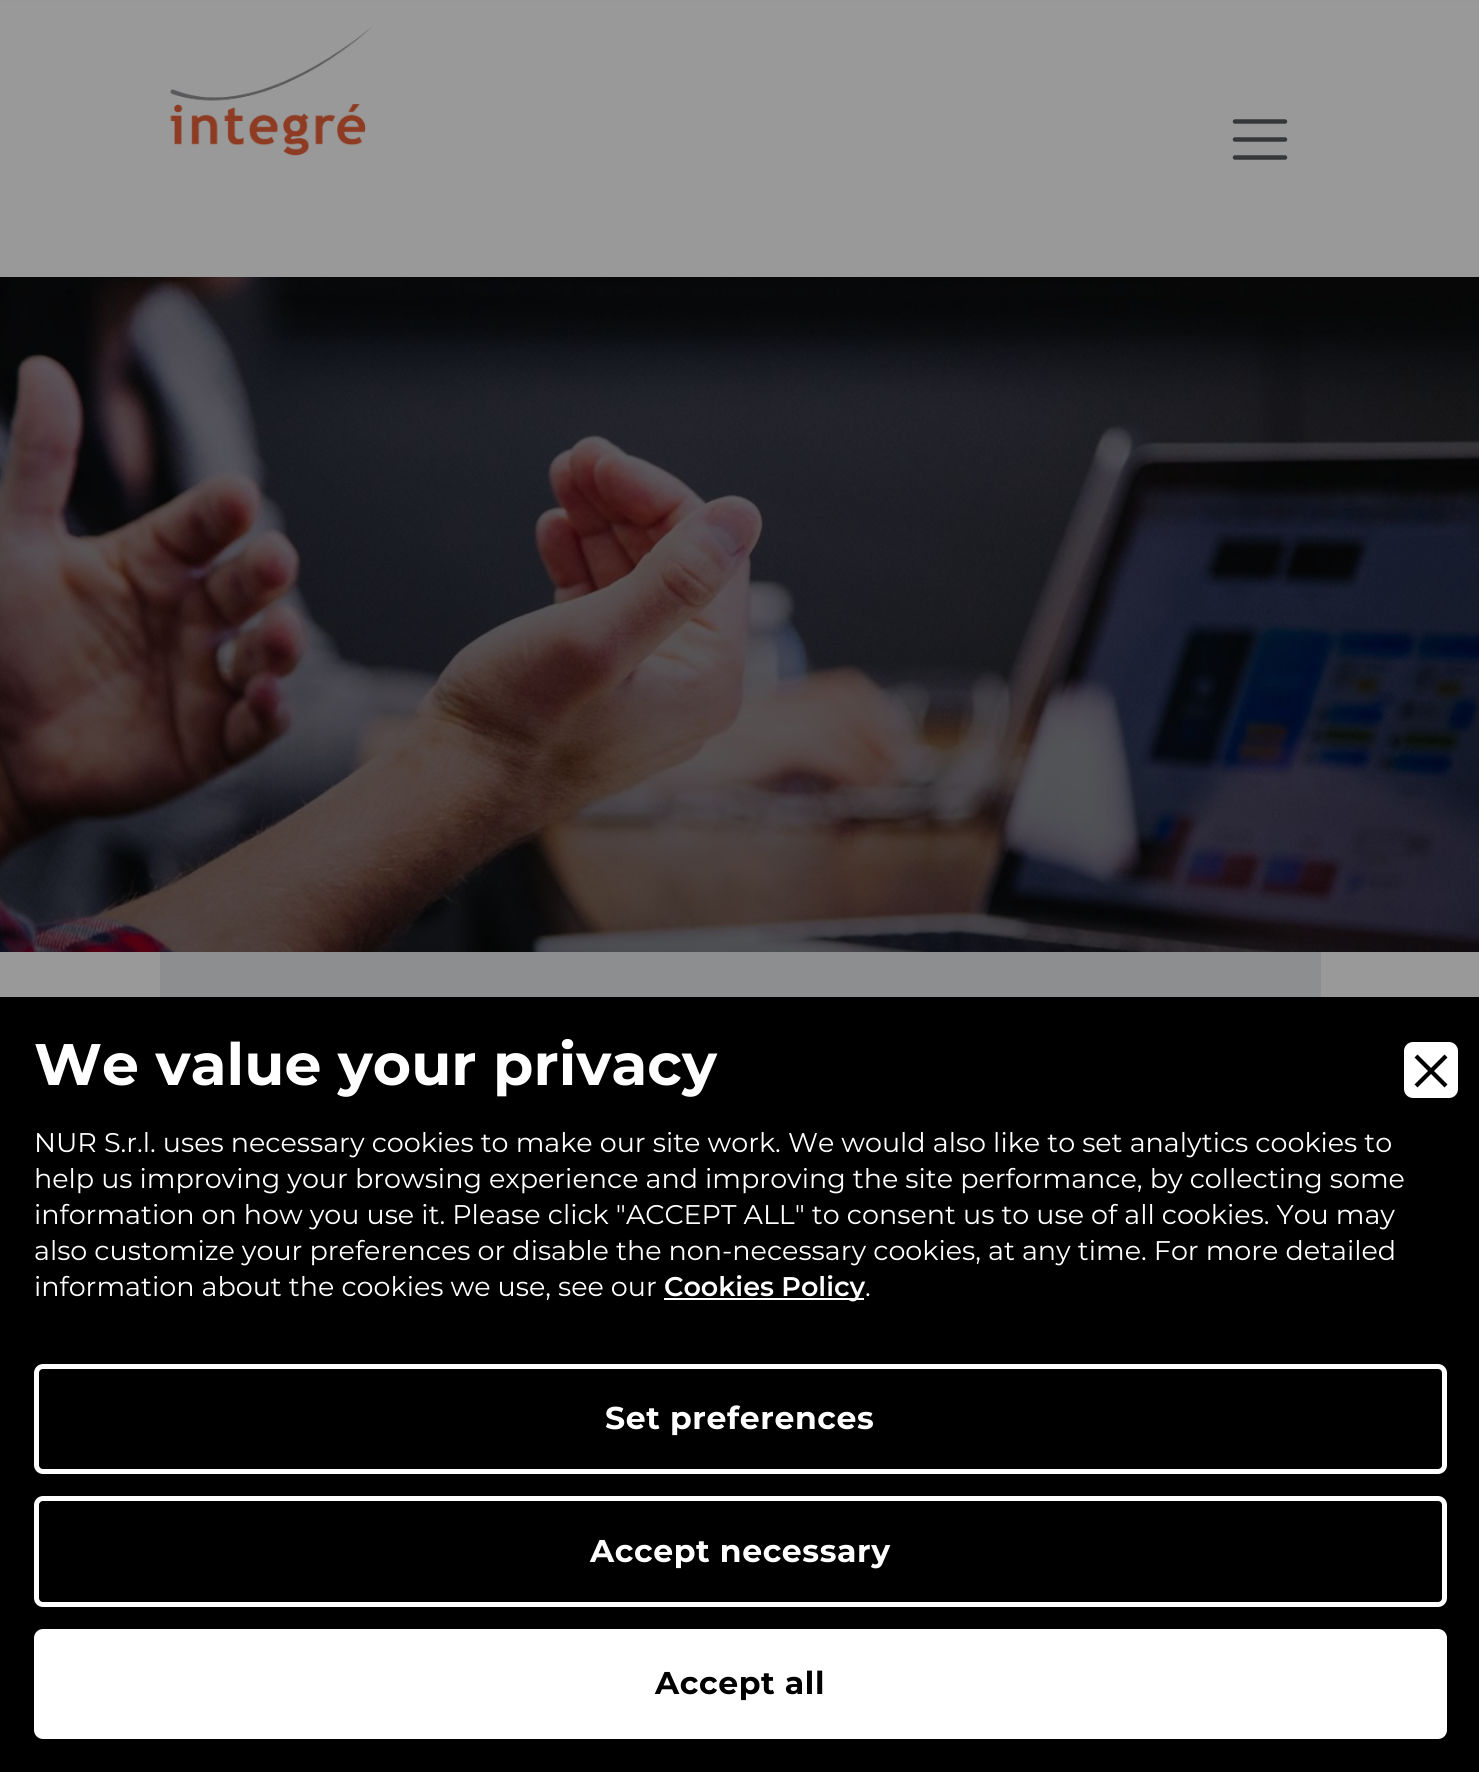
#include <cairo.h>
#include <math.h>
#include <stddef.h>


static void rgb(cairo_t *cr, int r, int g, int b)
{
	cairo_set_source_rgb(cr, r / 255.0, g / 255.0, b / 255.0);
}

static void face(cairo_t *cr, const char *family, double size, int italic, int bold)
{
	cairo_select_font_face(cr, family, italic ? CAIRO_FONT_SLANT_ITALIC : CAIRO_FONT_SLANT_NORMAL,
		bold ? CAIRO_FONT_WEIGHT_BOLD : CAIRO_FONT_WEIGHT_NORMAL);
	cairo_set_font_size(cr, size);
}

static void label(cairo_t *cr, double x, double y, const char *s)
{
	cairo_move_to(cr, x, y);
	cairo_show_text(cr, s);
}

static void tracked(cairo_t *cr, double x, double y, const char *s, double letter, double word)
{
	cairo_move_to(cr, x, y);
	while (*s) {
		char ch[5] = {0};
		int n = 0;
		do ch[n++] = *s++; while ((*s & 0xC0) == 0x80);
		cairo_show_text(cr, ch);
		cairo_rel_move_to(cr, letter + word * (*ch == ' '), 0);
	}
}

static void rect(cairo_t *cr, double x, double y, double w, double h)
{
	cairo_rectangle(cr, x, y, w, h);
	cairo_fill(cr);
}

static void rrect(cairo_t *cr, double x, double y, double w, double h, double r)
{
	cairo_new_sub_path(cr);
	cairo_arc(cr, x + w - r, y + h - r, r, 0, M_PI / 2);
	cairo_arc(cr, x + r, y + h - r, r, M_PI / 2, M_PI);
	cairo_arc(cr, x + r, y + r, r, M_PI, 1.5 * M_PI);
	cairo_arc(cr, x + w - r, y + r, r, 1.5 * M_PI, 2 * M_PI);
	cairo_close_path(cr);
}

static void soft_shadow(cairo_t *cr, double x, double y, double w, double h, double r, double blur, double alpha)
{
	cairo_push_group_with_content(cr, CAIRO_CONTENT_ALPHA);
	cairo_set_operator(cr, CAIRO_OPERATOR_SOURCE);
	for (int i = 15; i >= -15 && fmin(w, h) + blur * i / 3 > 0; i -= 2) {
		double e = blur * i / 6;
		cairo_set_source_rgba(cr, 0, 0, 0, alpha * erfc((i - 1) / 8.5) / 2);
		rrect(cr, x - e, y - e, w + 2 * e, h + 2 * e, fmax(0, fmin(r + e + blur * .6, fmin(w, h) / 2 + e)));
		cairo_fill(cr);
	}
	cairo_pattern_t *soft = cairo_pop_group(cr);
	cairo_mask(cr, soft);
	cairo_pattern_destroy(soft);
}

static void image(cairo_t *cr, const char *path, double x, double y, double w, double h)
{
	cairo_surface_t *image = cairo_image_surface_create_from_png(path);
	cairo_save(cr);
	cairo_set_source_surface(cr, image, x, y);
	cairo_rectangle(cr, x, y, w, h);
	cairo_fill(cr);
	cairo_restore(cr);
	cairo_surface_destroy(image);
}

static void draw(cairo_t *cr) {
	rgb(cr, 153, 153, 153);
	cairo_paint(cr);
	image(cr, "image1.png", 0, 277, 1479, 675);
	rgb(cr, 0, 0, 0);
	soft_shadow(cr, 0, 5, 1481, 276, 0, 4.5, 0.07);
	rgb(cr, 153, 153, 153);
	rect(cr, 0, 2, 1479, 275);
	image(cr, "image0.png", 170, 26, 203, 130);
	cairo_new_path(cr);
	cairo_move_to(cr, 1235, 121.5);
	cairo_line_to(cr, 1285, 121.5);
	cairo_move_to(cr, 1235, 139.5);
	cairo_line_to(cr, 1285, 139.5);
	cairo_move_to(cr, 1235, 157.5);
	cairo_line_to(cr, 1285, 157.5);
	rgb(cr, 53, 55, 57);
	cairo_set_line_width(cr, 4.5);
	cairo_set_line_cap(cr, CAIRO_LINE_CAP_ROUND);
	cairo_stroke(cr);
	rgb(cr, 140, 142, 143);
	rect(cr, 160, 952, 1161, 45);
	rgb(cr, 0, 0, 0);
	rect(cr, 0, 997, 1479, 775);
	face(cr, "Montserrat", 58.5, 0, 1);
	rgb(cr, 255, 255, 255);
	label(cr, 34, 1085, "We value your privacy");
	rrect(cr, 1404, 1042, 54, 56, 9);
	cairo_fill(cr);
	rgb(cr, 0, 0, 0);
	cairo_new_path(cr);
	cairo_move_to(cr, 1447.5, 1057.5);
	cairo_line_to(cr, 1444.5, 1054.5);
	cairo_line_to(cr, 1431, 1068);
	cairo_line_to(cr, 1417.5, 1054.5);
	cairo_line_to(cr, 1414.5, 1057.5);
	cairo_line_to(cr, 1428, 1071);
	cairo_line_to(cr, 1414.5, 1084.5);
	cairo_line_to(cr, 1417.5, 1087.5);
	cairo_line_to(cr, 1431, 1074);
	cairo_line_to(cr, 1444.5, 1087.5);
	cairo_line_to(cr, 1447.5, 1084.5);
	cairo_line_to(cr, 1434, 1071);
	cairo_close_path(cr);
	cairo_fill(cr);
	face(cr, "Montserrat", 27, 0, 0);
	rgb(cr, 255, 255, 255);
	label(cr, 34, 1152, "NUR S.r.l. uses necessary cookies to make our site work. We would also like to set analytics cookies to");
	label(cr, 34, 1188, "help us improving your browsing experience and improving the site performance, by collecting some");
	label(cr, 34, 1224, "information on how you use it. Please click \"ACCEPT ALL\" to consent us to use of all cookies. You may");
	label(cr, 34, 1260, "also customize your preferences or disable the non-necessary cookies, at any time. For more detailed");
	label(cr, 34, 1296, "information about the cookies we use, see our");
	rect(cr, 664, 1298, 200, 2);
	face(cr, "Montserrat SemiBold", 27, 0, 0);
	label(cr, 664, 1296, "Cookies Policy");
	face(cr, "Montserrat", 27, 0, 0);
	label(cr, 865, 1296, ".");
	rrect(cr, 36.5, 1366.5, 1408, 105, 6.5);
	cairo_set_line_width(cr, 5);
	cairo_set_line_cap(cr, CAIRO_LINE_CAP_BUTT);
	cairo_stroke(cr);
	face(cr, "Montserrat", 31.5, 0, 1);
	tracked(cr, 605, 1429, "Set preferences", 0.6, 0);
	rrect(cr, 36.5, 1498.5, 1408, 106, 6.5);
	cairo_stroke(cr);
	tracked(cr, 590, 1562, "Accept necessary", 0.6, 0);
	rrect(cr, 36.5, 1631.5, 1408, 105, 6.5);
	cairo_fill_preserve(cr);
	cairo_stroke(cr);
	rgb(cr, 0, 0, 0);
	tracked(cr, 655, 1694, "Accept all", 0.6, 0);
}

int main(void) {
	cairo_surface_t *surface = cairo_image_surface_create(CAIRO_FORMAT_RGB24, 1479, 1772);
	cairo_t *cr = cairo_create(surface);
	cairo_font_options_t *options = cairo_font_options_create();
	cairo_font_options_set_hint_metrics(options, CAIRO_HINT_METRICS_OFF);
	cairo_font_options_set_hint_style(options, CAIRO_HINT_STYLE_NONE);
	cairo_set_font_options(cr, options);
	cairo_set_miter_limit(cr, 4);
	draw(cr);
	cairo_surface_write_to_png(surface, "render.png");
	cairo_font_options_destroy(options);
	cairo_destroy(cr);
	cairo_surface_destroy(surface);
	return 0;
}
